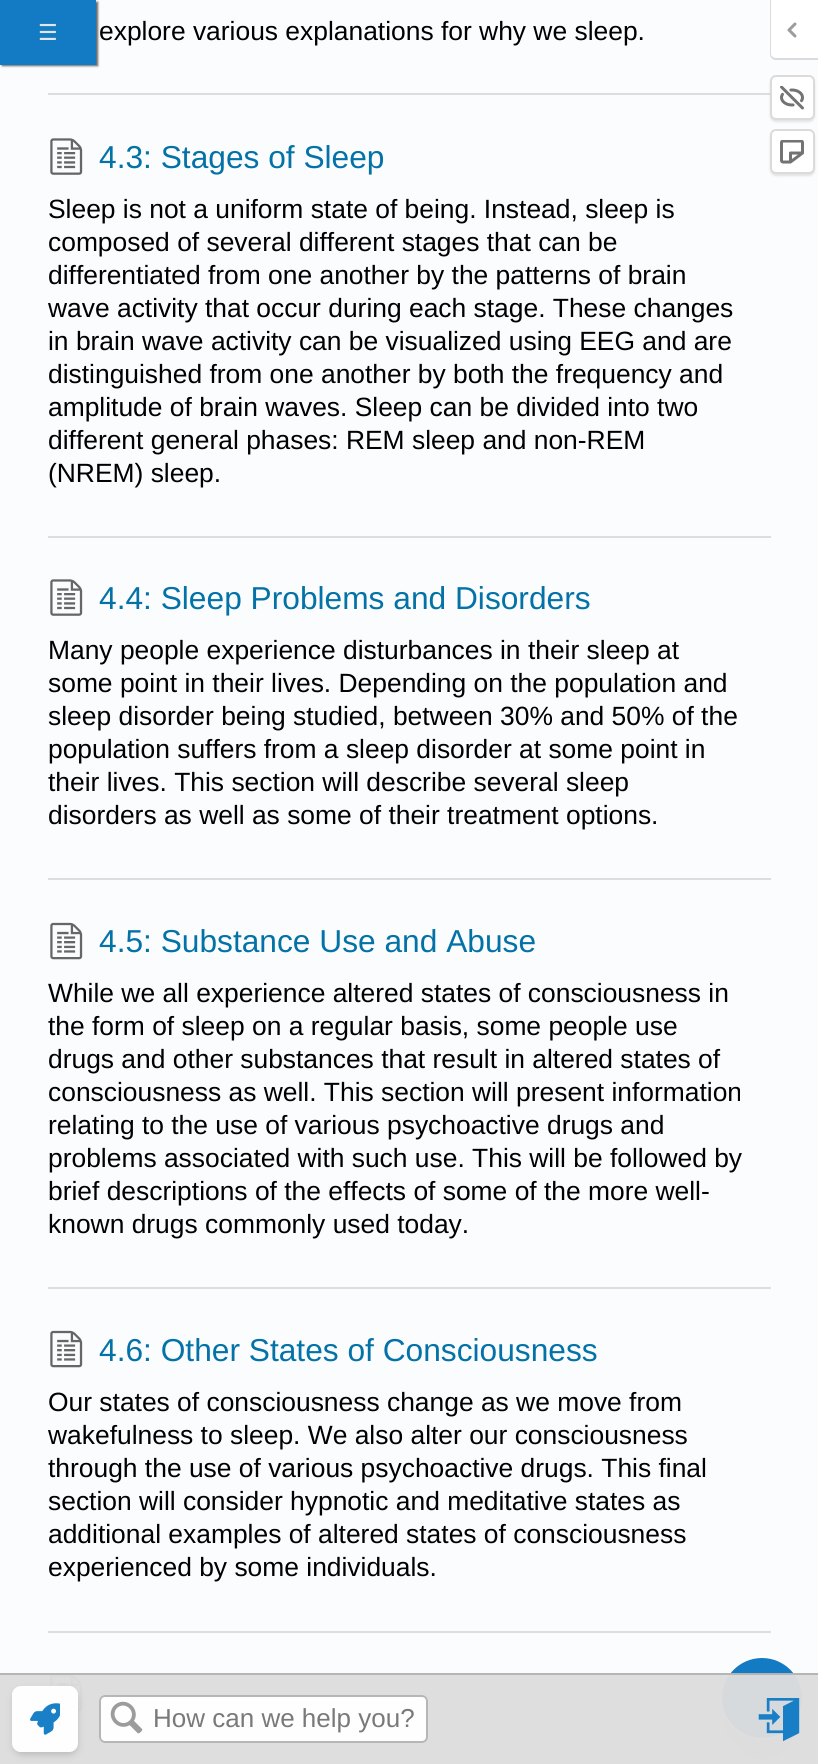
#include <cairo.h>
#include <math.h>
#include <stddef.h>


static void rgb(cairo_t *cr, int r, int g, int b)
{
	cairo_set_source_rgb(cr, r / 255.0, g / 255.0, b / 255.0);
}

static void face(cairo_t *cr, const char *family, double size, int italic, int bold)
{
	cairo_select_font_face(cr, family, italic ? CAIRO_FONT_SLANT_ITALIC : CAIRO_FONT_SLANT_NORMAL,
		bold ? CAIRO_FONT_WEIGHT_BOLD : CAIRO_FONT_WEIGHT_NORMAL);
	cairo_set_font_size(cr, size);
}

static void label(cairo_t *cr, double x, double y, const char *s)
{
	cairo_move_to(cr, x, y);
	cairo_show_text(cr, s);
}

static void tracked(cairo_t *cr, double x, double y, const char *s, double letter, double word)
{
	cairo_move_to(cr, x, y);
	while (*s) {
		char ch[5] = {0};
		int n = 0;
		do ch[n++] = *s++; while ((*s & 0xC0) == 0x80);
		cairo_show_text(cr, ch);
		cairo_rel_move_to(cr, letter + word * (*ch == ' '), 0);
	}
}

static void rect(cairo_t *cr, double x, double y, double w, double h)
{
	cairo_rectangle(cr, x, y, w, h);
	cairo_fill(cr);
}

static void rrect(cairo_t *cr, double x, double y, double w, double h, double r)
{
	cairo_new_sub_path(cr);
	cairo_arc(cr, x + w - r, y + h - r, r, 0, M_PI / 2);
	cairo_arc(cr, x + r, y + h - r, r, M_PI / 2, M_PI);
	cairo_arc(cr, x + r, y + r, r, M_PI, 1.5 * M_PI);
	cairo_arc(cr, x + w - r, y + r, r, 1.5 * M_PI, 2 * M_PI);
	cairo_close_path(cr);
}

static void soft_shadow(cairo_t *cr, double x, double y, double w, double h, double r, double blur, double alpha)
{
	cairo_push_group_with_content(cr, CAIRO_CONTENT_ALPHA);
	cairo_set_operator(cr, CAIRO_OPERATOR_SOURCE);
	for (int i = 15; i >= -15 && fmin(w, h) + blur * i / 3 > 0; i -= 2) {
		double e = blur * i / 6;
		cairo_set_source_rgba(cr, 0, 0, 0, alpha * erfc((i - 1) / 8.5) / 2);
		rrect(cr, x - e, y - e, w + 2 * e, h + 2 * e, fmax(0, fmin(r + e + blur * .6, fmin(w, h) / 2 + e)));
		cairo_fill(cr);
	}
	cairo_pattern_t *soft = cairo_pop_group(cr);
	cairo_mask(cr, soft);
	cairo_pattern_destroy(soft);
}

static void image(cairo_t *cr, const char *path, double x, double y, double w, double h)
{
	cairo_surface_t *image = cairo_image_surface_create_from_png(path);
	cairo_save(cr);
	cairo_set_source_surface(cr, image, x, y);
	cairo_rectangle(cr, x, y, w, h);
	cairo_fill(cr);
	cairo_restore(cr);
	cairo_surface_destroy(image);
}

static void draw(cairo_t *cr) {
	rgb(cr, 251, 252, 254);
	cairo_paint(cr);
	rgb(cr, 0, 0, 0);
	soft_shadow(cr, 2, 2, 96, 64, 0, 1, 0.6);
	rgb(cr, 18, 123, 196);
	rect(cr, 0, 0, 96, 65);
	face(cr, "DejaVu Sans", 22, 0, 0);
	rgb(cr, 229, 229, 229);
	tracked(cr, 38, 40, "☰", 1, 0);
	rgb(cr, 221, 221, 221);
	rect(cr, 48, 93, 723, 2);
	face(cr, "Liberation Sans", 26.4, 0, 0);
	rgb(cr, 0, 0, 0);
	label(cr, 99, 40, "explore various explanations for why we sleep.");
	rgb(cr, 221, 221, 221);
	rect(cr, 48, 536, 723, 2);
	image(cr, "image0.png", 50, 138, 33, 37);
	face(cr, "Liberation Sans", 31.7, 0, 0);
	rgb(cr, 3, 114, 166);
	label(cr, 99, 168, "4.3: Stages of Sleep");
	face(cr, "Liberation Sans", 26.4, 0, 0);
	rgb(cr, 0, 0, 0);
	label(cr, 48, 218, "Sleep is not a uniform state of being. Instead, sleep is");
	label(cr, 48, 251, "composed of several different stages that can be");
	label(cr, 48, 284, "differentiated from one another by the patterns of brain");
	label(cr, 48, 317, "wave activity that occur during each stage. These changes");
	label(cr, 48, 350, "in brain wave activity can be visualized using EEG and are");
	label(cr, 48, 383, "distinguished from one another by both the frequency and");
	label(cr, 48, 416, "amplitude of brain waves. Sleep can be divided into two");
	label(cr, 48, 449, "different general phases: REM sleep and non-REM");
	label(cr, 48, 482, "(NREM) sleep.");
	rgb(cr, 221, 221, 221);
	rect(cr, 48, 878, 723, 2);
	image(cr, "image0.png", 50, 579, 33, 37);
	face(cr, "Liberation Sans", 31.7, 0, 0);
	rgb(cr, 3, 114, 166);
	label(cr, 99, 609, "4.4: Sleep Problems and Disorders");
	face(cr, "Liberation Sans", 26.4, 0, 0);
	rgb(cr, 0, 0, 0);
	label(cr, 48, 659, "Many people experience disturbances in their sleep at");
	label(cr, 48, 692, "some point in their lives. Depending on the population and");
	label(cr, 48, 725, "sleep disorder being studied, between 30% and 50% of the");
	label(cr, 48, 758, "population suffers from a sleep disorder at some point in");
	label(cr, 48, 791, "their lives. This section will describe several sleep");
	label(cr, 48, 824, "disorders as well as some of their treatment options.");
	rgb(cr, 221, 221, 221);
	rect(cr, 48, 1287, 723, 2);
	image(cr, "image1.png", 50, 922, 33, 38);
	face(cr, "Liberation Sans", 31.7, 0, 0);
	rgb(cr, 3, 114, 166);
	label(cr, 99, 952, "4.5: Substance Use and Abuse");
	face(cr, "Liberation Sans", 26.4, 0, 0);
	rgb(cr, 0, 0, 0);
	label(cr, 48, 1002, "While we all experience altered states of consciousness in");
	label(cr, 48, 1035, "the form of sleep on a regular basis, some people use");
	label(cr, 48, 1068, "drugs and other substances that result in altered states of");
	label(cr, 48, 1101, "consciousness as well. This section will present information");
	label(cr, 48, 1134, "relating to the use of various psychoactive drugs and");
	label(cr, 48, 1167, "problems associated with such use. This will be followed by");
	label(cr, 48, 1200, "brief descriptions of the effects of some of the more well-");
	label(cr, 48, 1233, "known drugs commonly used today.");
	rgb(cr, 221, 221, 221);
	rect(cr, 48, 1631, 723, 2);
	image(cr, "image1.png", 50, 1330, 33, 38);
	face(cr, "Liberation Sans", 31.7, 0, 0);
	rgb(cr, 3, 114, 166);
	label(cr, 99, 1361, "4.6: Other States of Consciousness");
	face(cr, "Liberation Sans", 26.4, 0, 0);
	rgb(cr, 0, 0, 0);
	label(cr, 48, 1411, "Our states of consciousness change as we move from");
	label(cr, 48, 1444, "wakefulness to sleep. We also alter our consciousness");
	label(cr, 48, 1477, "through the use of various psychoactive drugs. This final");
	label(cr, 48, 1510, "section will consider hypnotic and meditative states as");
	label(cr, 48, 1543, "additional examples of altered states of consciousness");
	label(cr, 48, 1576, "experienced by some individuals.");
	image(cr, "image0.png", 50, 1674, 33, 37);
	rgb(cr, 0, 0, 0);
	soft_shadow(cr, 729, 1677, 66, 66, 33, 7.5, 0.1);
	soft_shadow(cr, 728, 1694, 69, 69, 34.5, 19, 0.1);
	rgb(cr, 18, 123, 196);
	cairo_arc(cr, 762, 1698, 41, 0, 2 * M_PI);
	cairo_fill_preserve(cr);
	rgb(cr, 255, 255, 255);
	cairo_stroke(cr);
	cairo_set_source_rgba(cr, 0.867, 0.867, 0.867, 0.97);
	rect(cr, 0, 1674, 818, 90);
	cairo_set_source_rgba(cr, 0.706, 0.706, 0.706, 0.97);
	rect(cr, 0, 1673, 818, 2);
	cairo_save(cr);
	cairo_set_fill_rule(cr, CAIRO_FILL_RULE_EVEN_ODD);
	cairo_new_path(cr);
	cairo_move_to(cr, 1, 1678);
	cairo_line_to(cr, 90, 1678);
	cairo_line_to(cr, 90, 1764);
	cairo_line_to(cr, 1, 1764);
	cairo_close_path(cr);
	cairo_move_to(cr, 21, 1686);
	cairo_line_to(cr, 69, 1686);
	cairo_curve_to(cr, 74, 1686, 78, 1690, 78, 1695);
	cairo_line_to(cr, 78, 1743);
	cairo_curve_to(cr, 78, 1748, 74, 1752, 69, 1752);
	cairo_line_to(cr, 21, 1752);
	cairo_curve_to(cr, 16, 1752, 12, 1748, 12, 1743);
	cairo_line_to(cr, 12, 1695);
	cairo_curve_to(cr, 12, 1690, 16, 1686, 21, 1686);
	cairo_close_path(cr);
	cairo_clip(cr);
	rgb(cr, 0, 0, 0);
	soft_shadow(cr, 14, 1691, 63, 63, 8, 4, 0.19);
	cairo_restore(cr);
	cairo_set_source_rgba(cr, 1, 1, 1, 0.97);
	rrect(cr, 12, 1686, 66, 66, 9);
	cairo_fill(cr);
	image(cr, "image2.png", 30, 1703, 30, 32);
	rrect(cr, 99, 1695, 329, 48, 6);
	cairo_fill(cr);
	rrect(cr, 100, 1696, 327, 46, 5);
	cairo_set_source_rgba(cr, 0.706, 0.706, 0.706, 0.97);
	cairo_stroke(cr);
	image(cr, "image3.png", 110, 1701, 33, 33);
	face(cr, "Liberation Sans", 26, 0, 0);
	rgb(cr, 121, 121, 121);
	label(cr, 153, 1727, "How can we help you?");
	image(cr, "image4.png", 758, 1698, 42, 44);
	rgb(cr, 255, 255, 255);
	cairo_new_path(cr);
	cairo_move_to(cr, 771, 0);
	cairo_line_to(cr, 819, 0);
	cairo_line_to(cr, 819, 59);
	cairo_line_to(cr, 776, 59);
	cairo_curve_to(cr, 773, 59, 771, 57, 771, 54);
	cairo_close_path(cr);
	cairo_fill(cr);
	rgb(cr, 219, 219, 219);
	cairo_set_fill_rule(cr, CAIRO_FILL_RULE_EVEN_ODD);
	cairo_new_path(cr);
	cairo_move_to(cr, 770, 0);
	cairo_line_to(cr, 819, 0);
	cairo_line_to(cr, 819, 60);
	cairo_line_to(cr, 776, 60);
	cairo_curve_to(cr, 772, 60, 770, 57, 770, 54);
	cairo_close_path(cr);
	cairo_move_to(cr, 771, 0);
	cairo_line_to(cr, 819, 0);
	cairo_line_to(cr, 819, 58);
	cairo_line_to(cr, 776, 58);
	cairo_curve_to(cr, 773, 58, 771, 56, 771, 54);
	cairo_close_path(cr);
	cairo_fill(cr);
	image(cr, "image5.png", 787, 22, 10, 16);
	rgb(cr, 0, 0, 0);
	soft_shadow(cr, 770, 77, 45, 45, 6, 1, 0.1);
	rgb(cr, 255, 255, 255);
	rrect(cr, 771, 76, 43, 43, 5);
	cairo_fill_preserve(cr);
	rgb(cr, 219, 219, 219);
	cairo_stroke(cr);
	image(cr, "image6.png", 780, 86, 24, 24);
	rgb(cr, 0, 0, 0);
	soft_shadow(cr, 770, 131, 45, 45, 6, 1, 0.1);
	rgb(cr, 255, 255, 255);
	rrect(cr, 771, 130, 43, 43, 5);
	cairo_fill_preserve(cr);
	rgb(cr, 219, 219, 219);
	cairo_stroke(cr);
	image(cr, "image7.png", 780, 140, 24, 24);
}

int main(void) {
	cairo_surface_t *surface = cairo_image_surface_create(CAIRO_FORMAT_RGB24, 818, 1764);
	cairo_t *cr = cairo_create(surface);
	cairo_font_options_t *options = cairo_font_options_create();
	cairo_font_options_set_hint_metrics(options, CAIRO_HINT_METRICS_OFF);
	cairo_font_options_set_hint_style(options, CAIRO_HINT_STYLE_NONE);
	cairo_set_font_options(cr, options);
	cairo_set_miter_limit(cr, 4);
	draw(cr);
	cairo_surface_write_to_png(surface, "render.png");
	cairo_font_options_destroy(options);
	cairo_destroy(cr);
	cairo_surface_destroy(surface);
	return 0;
}
